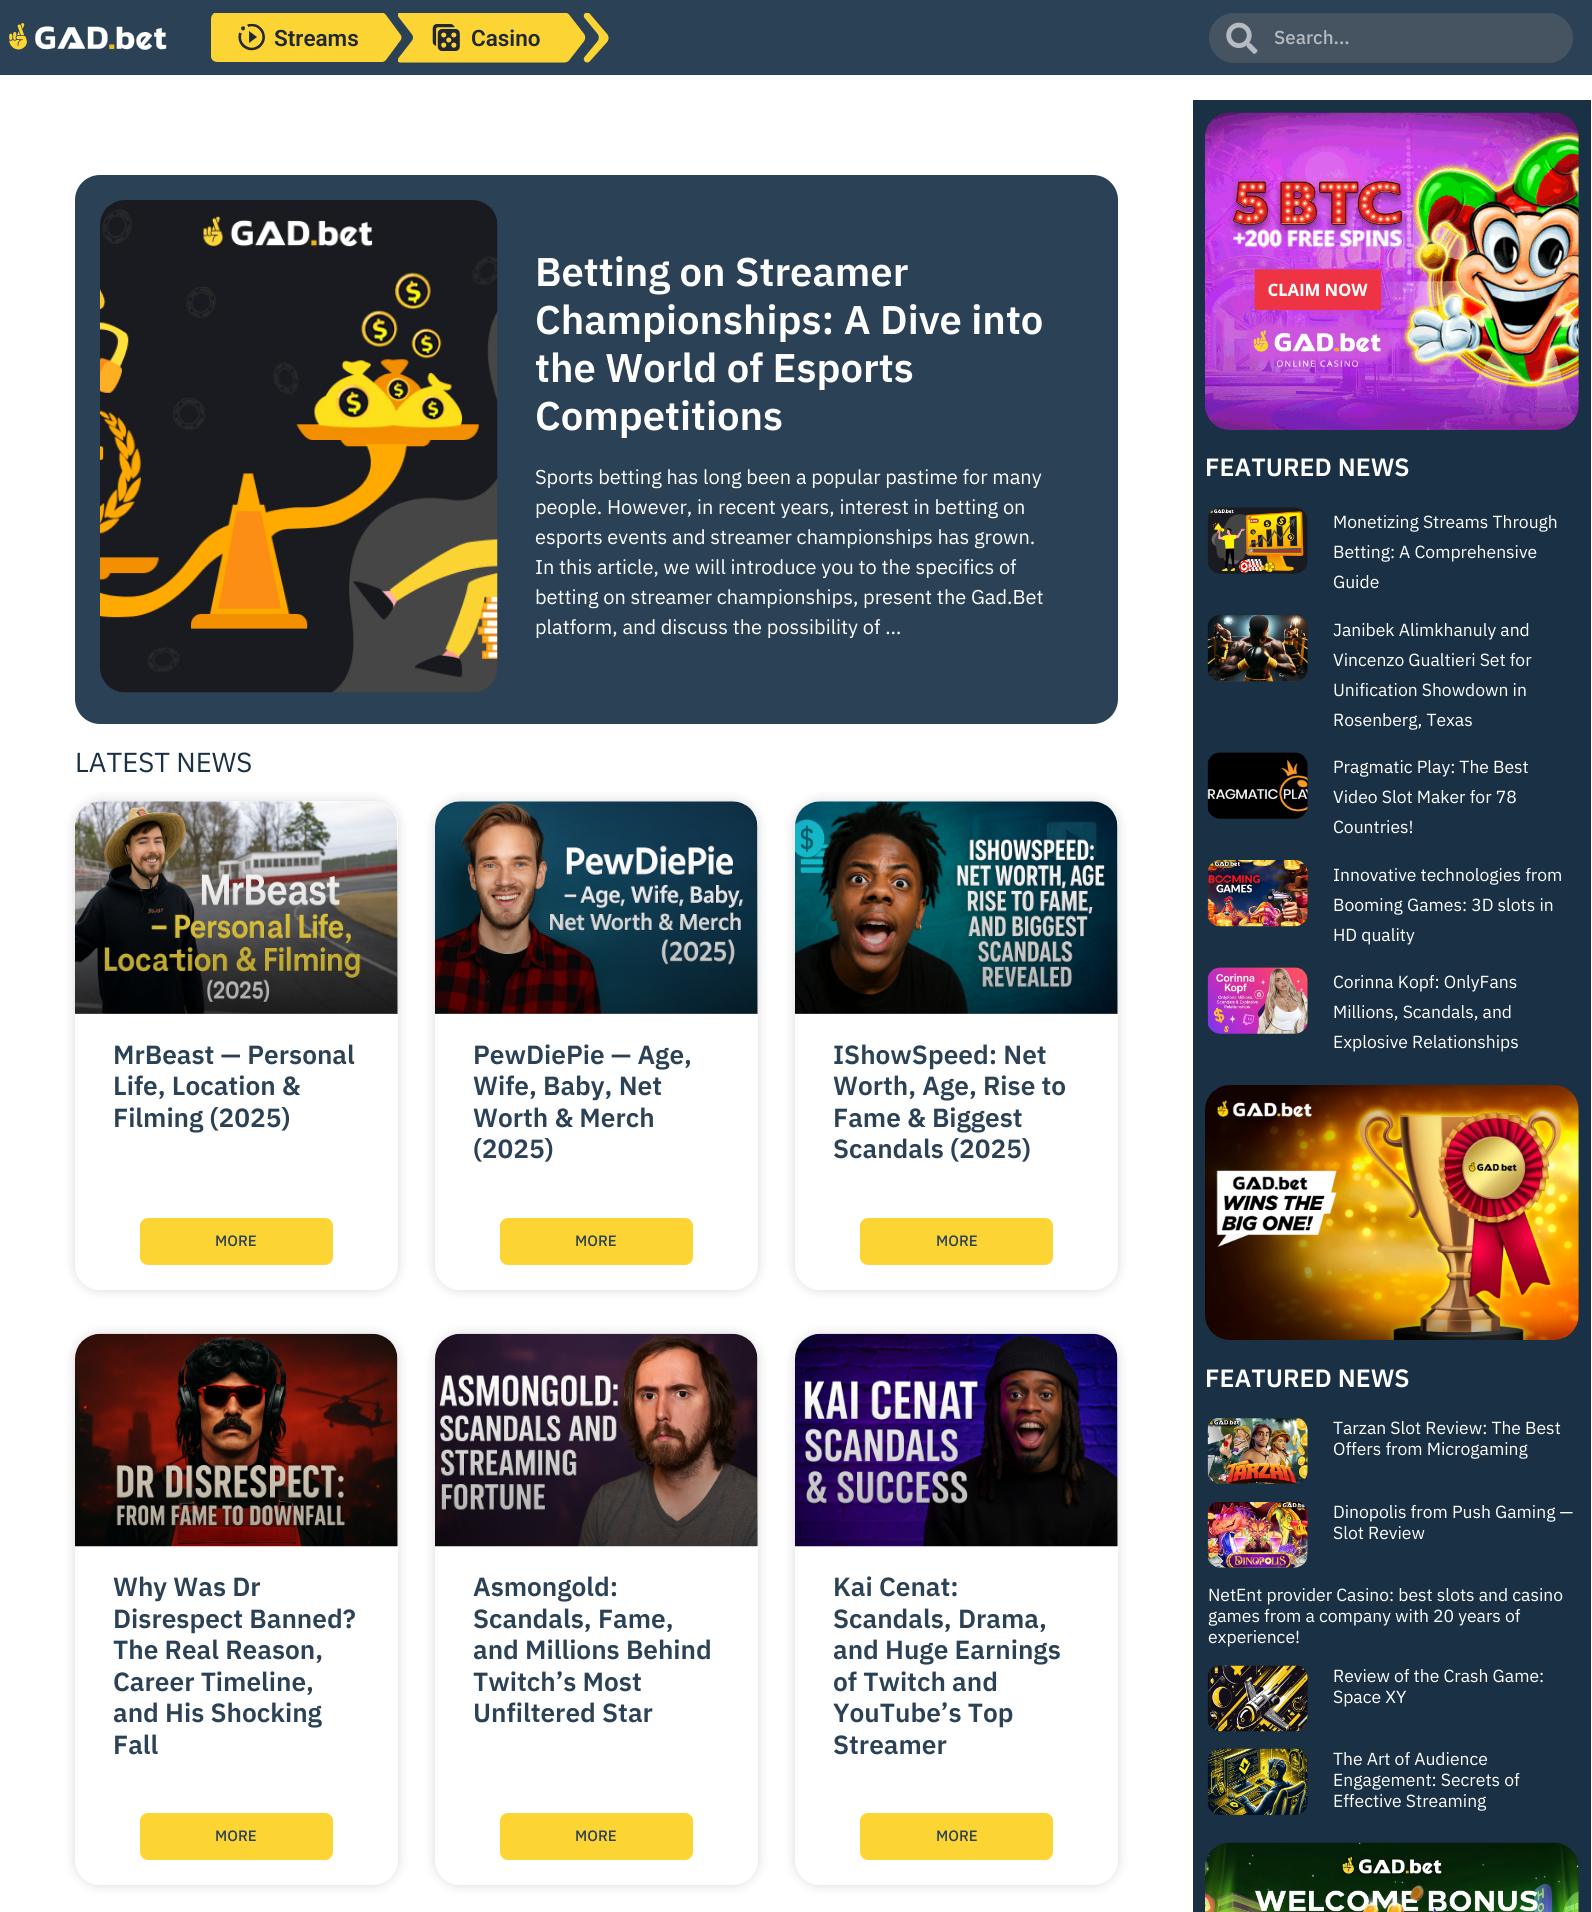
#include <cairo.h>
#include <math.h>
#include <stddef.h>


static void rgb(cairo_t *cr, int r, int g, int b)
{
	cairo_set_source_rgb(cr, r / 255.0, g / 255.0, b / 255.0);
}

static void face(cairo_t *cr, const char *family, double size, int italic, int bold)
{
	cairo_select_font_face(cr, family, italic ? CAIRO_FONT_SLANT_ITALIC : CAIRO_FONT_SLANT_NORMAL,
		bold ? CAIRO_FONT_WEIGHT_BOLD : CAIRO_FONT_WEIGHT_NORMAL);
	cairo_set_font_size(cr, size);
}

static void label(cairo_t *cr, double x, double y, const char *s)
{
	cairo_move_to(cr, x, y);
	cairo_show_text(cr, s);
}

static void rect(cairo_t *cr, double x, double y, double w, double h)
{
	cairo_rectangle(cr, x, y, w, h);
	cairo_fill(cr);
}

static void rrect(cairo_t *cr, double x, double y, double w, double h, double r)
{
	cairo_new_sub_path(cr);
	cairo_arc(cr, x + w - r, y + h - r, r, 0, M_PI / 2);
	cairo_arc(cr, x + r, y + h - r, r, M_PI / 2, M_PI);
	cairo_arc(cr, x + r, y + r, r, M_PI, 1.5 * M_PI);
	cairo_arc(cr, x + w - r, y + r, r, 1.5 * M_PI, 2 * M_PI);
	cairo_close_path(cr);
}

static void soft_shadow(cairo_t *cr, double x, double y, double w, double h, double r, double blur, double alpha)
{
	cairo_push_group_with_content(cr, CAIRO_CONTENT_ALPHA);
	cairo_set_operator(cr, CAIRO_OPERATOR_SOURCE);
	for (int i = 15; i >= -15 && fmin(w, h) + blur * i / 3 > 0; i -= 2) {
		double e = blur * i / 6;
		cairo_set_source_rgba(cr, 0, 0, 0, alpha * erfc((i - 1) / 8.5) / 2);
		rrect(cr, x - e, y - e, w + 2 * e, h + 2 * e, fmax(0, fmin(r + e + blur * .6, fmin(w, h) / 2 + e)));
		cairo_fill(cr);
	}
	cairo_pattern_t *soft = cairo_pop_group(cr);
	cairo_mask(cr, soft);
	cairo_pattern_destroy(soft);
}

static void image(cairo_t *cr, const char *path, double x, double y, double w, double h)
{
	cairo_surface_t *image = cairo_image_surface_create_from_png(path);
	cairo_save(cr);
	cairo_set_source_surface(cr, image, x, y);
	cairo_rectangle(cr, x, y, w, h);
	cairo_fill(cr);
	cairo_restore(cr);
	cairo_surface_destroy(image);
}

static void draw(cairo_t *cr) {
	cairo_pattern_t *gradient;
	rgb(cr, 255, 255, 255);
	cairo_paint(cr);
	rgb(cr, 43, 65, 85);
	rect(cr, 0, 0, 1592, 75);
	image(cr, "image0.png", 9, 23, 158, 27);
	cairo_save(cr);
	cairo_rectangle(cr, 211, 13, 212, 50);
	cairo_clip(cr);
	rgb(cr, 252, 213, 53);
	cairo_new_path(cr);
	cairo_move_to(cr, 211, 19);
	cairo_curve_to(cr, 211, 15, 214, 12, 218, 12);
	cairo_line_to(cr, 381, 12);
	cairo_curve_to(cr, 383, 12, 384, 13, 386, 15);
	cairo_line_to(cr, 400, 34);
	cairo_curve_to(cr, 402, 36, 402, 39, 400, 41);
	cairo_line_to(cr, 386, 60);
	cairo_curve_to(cr, 384, 62, 383, 62, 381, 62);
	cairo_line_to(cr, 218, 62);
	cairo_curve_to(cr, 214, 62, 211, 60, 211, 56);
	cairo_close_path(cr);
	cairo_fill(cr);
	cairo_restore(cr);
	image(cr, "image1.png", 238, 23, 27, 28);
	face(cr, "Roboto SemiBold", 22.5, 0, 0);
	rgb(cr, 33, 40, 51);
	label(cr, 274, 46, "Streams");
	image(cr, "image2.png", 398, 13, 211, 50);
	image(cr, "image3.png", 432, 24, 28, 27);
	label(cr, 471, 46, "Casino");
	rgb(cr, 70, 84, 97);
	rrect(cr, 1209, 13, 364, 50, 25);
	cairo_fill(cr);
	image(cr, "image4.png", 1226, 22, 32, 32);
	face(cr, "IBM Plex Sans Medium", 18.75, 0, 0);
	rgb(cr, 181, 187, 192);
	label(cr, 1274, 44, "Search...");
	rgb(cr, 43, 65, 85);
	rrect(cr, 75, 175, 1043, 549, 25);
	cairo_fill(cr);
	image(cr, "image5.png", 100, 200, 398, 493);
	face(cr, "IBM Plex Sans SemiBold", 40, 0, 0);
	rgb(cr, 255, 255, 255);
	label(cr, 535, 286, "Betting on Streamer");
	label(cr, 535, 334, "Championships: A Dive into");
	label(cr, 535, 382, "the World of Esports");
	label(cr, 535, 430, "Competitions");
	face(cr, "IBM Plex Sans", 20, 0, 0);
	label(cr, 535, 484, "Sports betting has long been a popular pastime for many");
	label(cr, 535, 514, "people. However, in recent years, interest in betting on");
	label(cr, 535, 544, "esports events and streamer championships has grown.");
	label(cr, 535, 574, "In this article, we will introduce you to the specifics of");
	label(cr, 535, 604, "betting on streamer championships, present the Gad.Bet");
	label(cr, 535, 634, "platform, and discuss the possibility of …");
	face(cr, "IBM Plex Sans", 27.5, 0, 0);
	rgb(cr, 26, 48, 68);
	label(cr, 75, 772, "LATEST NEWS");
	rgb(cr, 0, 0, 0);
	soft_shadow(cr, 75, 801, 323, 489, 25, 6, 0.15);
	rgb(cr, 255, 255, 255);
	rrect(cr, 75, 801, 323, 489, 25);
	cairo_fill(cr);
	image(cr, "image6.png", 75, 801, 323, 213);
	gradient = cairo_pattern_create_linear(236, 1014, 236, 801);
	cairo_pattern_add_color_stop_rgba(gradient, 0, 0, 0, 0, 0.35);
	cairo_pattern_add_color_stop_rgba(gradient, 0.75, 0, 0, 0, 0);
	cairo_set_source(cr, gradient);
	cairo_pattern_destroy(gradient);
	rect(cr, 75, 864, 323, 150);
	face(cr, "IBM Plex Sans SemiBold", 26.25, 0, 0);
	rgb(cr, 43, 65, 85);
	label(cr, 113, 1064, "MrBeast — Personal");
	label(cr, 113, 1095, "Life, Location &");
	label(cr, 113, 1127, "Filming (2025)");
	rgb(cr, 252, 213, 53);
	rrect(cr, 140, 1218, 193, 47, 8);
	cairo_fill(cr);
	face(cr, "IBM Plex Sans Medium", 15, 0, 0);
	rgb(cr, 43, 65, 85);
	label(cr, 215, 1246, "MORE");
	rgb(cr, 0, 0, 0);
	soft_shadow(cr, 435, 801, 323, 489, 25, 6, 0.15);
	rgb(cr, 255, 255, 255);
	rrect(cr, 435, 801, 323, 489, 25);
	cairo_fill(cr);
	image(cr, "image7.png", 435, 801, 323, 213);
	gradient = cairo_pattern_create_linear(596, 1014, 596, 801);
	cairo_pattern_add_color_stop_rgba(gradient, 0, 0, 0, 0, 0.35);
	cairo_pattern_add_color_stop_rgba(gradient, 0.75, 0, 0, 0, 0);
	cairo_set_source(cr, gradient);
	cairo_pattern_destroy(gradient);
	rect(cr, 435, 864, 323, 150);
	face(cr, "IBM Plex Sans SemiBold", 26.25, 0, 0);
	rgb(cr, 43, 65, 85);
	label(cr, 473, 1064, "PewDiePie — Age,");
	label(cr, 473, 1095, "Wife, Baby, Net");
	label(cr, 473, 1127, "Worth & Merch");
	label(cr, 473, 1158, "(2025)");
	rgb(cr, 252, 213, 53);
	rrect(cr, 500, 1218, 193, 47, 8);
	cairo_fill(cr);
	face(cr, "IBM Plex Sans Medium", 15, 0, 0);
	rgb(cr, 43, 65, 85);
	label(cr, 575, 1246, "MORE");
	rgb(cr, 0, 0, 0);
	soft_shadow(cr, 795, 801, 323, 489, 25, 6, 0.15);
	rgb(cr, 255, 255, 255);
	rrect(cr, 795, 801, 323, 489, 25);
	cairo_fill(cr);
	image(cr, "image8.png", 795, 801, 323, 213);
	gradient = cairo_pattern_create_linear(956, 1014, 956, 801);
	cairo_pattern_add_color_stop_rgba(gradient, 0, 0, 0, 0, 0.35);
	cairo_pattern_add_color_stop_rgba(gradient, 0.75, 0, 0, 0, 0);
	cairo_set_source(cr, gradient);
	cairo_pattern_destroy(gradient);
	rect(cr, 795, 864, 323, 150);
	face(cr, "IBM Plex Sans SemiBold", 26.25, 0, 0);
	rgb(cr, 43, 65, 85);
	label(cr, 833, 1064, "IShowSpeed: Net");
	label(cr, 833, 1095, "Worth, Age, Rise to");
	label(cr, 833, 1127, "Fame & Biggest");
	label(cr, 833, 1158, "Scandals (2025)");
	rgb(cr, 252, 213, 53);
	rrect(cr, 860, 1218, 193, 47, 8);
	cairo_fill(cr);
	face(cr, "IBM Plex Sans Medium", 15, 0, 0);
	rgb(cr, 43, 65, 85);
	label(cr, 936, 1246, "MORE");
	rgb(cr, 0, 0, 0);
	soft_shadow(cr, 75, 1334, 323, 551, 25, 6, 0.15);
	rgb(cr, 255, 255, 255);
	rrect(cr, 75, 1334, 323, 551, 25);
	cairo_fill(cr);
	image(cr, "image9.png", 75, 1333, 323, 214);
	gradient = cairo_pattern_create_linear(236, 1546, 236, 1334);
	cairo_pattern_add_color_stop_rgba(gradient, 0, 0, 0, 0, 0.35);
	cairo_pattern_add_color_stop_rgba(gradient, 0.75, 0, 0, 0, 0);
	cairo_set_source(cr, gradient);
	cairo_pattern_destroy(gradient);
	rect(cr, 75, 1397, 323, 149);
	face(cr, "IBM Plex Sans SemiBold", 26.25, 0, 0);
	rgb(cr, 43, 65, 85);
	label(cr, 113, 1596, "Why Was Dr");
	label(cr, 113, 1628, "Disrespect Banned?");
	label(cr, 113, 1659, "The Real Reason,");
	label(cr, 113, 1691, "Career Timeline,");
	label(cr, 113, 1722, "and His Shocking");
	label(cr, 113, 1754, "Fall");
	rgb(cr, 252, 213, 53);
	rrect(cr, 140, 1813, 193, 47, 8);
	cairo_fill(cr);
	face(cr, "IBM Plex Sans Medium", 15, 0, 0);
	rgb(cr, 43, 65, 85);
	label(cr, 215, 1841, "MORE");
	rgb(cr, 0, 0, 0);
	soft_shadow(cr, 435, 1334, 323, 551, 25, 6, 0.15);
	rgb(cr, 255, 255, 255);
	rrect(cr, 435, 1334, 323, 551, 25);
	cairo_fill(cr);
	image(cr, "image10.png", 435, 1333, 323, 214);
	gradient = cairo_pattern_create_linear(596, 1546, 596, 1334);
	cairo_pattern_add_color_stop_rgba(gradient, 0, 0, 0, 0, 0.35);
	cairo_pattern_add_color_stop_rgba(gradient, 0.75, 0, 0, 0, 0);
	cairo_set_source(cr, gradient);
	cairo_pattern_destroy(gradient);
	rect(cr, 435, 1397, 323, 149);
	face(cr, "IBM Plex Sans SemiBold", 26.25, 0, 0);
	rgb(cr, 43, 65, 85);
	label(cr, 473, 1596, "Asmongold:");
	label(cr, 473, 1628, "Scandals, Fame,");
	label(cr, 473, 1659, "and Millions Behind");
	label(cr, 473, 1691, "Twitch’s Most");
	label(cr, 473, 1722, "Unfiltered Star");
	rgb(cr, 252, 213, 53);
	rrect(cr, 500, 1813, 193, 47, 8);
	cairo_fill(cr);
	face(cr, "IBM Plex Sans Medium", 15, 0, 0);
	rgb(cr, 43, 65, 85);
	label(cr, 575, 1841, "MORE");
	rgb(cr, 0, 0, 0);
	soft_shadow(cr, 795, 1334, 323, 551, 25, 6, 0.15);
	rgb(cr, 255, 255, 255);
	rrect(cr, 795, 1334, 323, 551, 25);
	cairo_fill(cr);
	image(cr, "image11.png", 795, 1333, 323, 214);
	gradient = cairo_pattern_create_linear(956, 1546, 956, 1334);
	cairo_pattern_add_color_stop_rgba(gradient, 0, 0, 0, 0, 0.35);
	cairo_pattern_add_color_stop_rgba(gradient, 0.75, 0, 0, 0, 0);
	cairo_set_source(cr, gradient);
	cairo_pattern_destroy(gradient);
	rect(cr, 795, 1397, 323, 149);
	face(cr, "IBM Plex Sans SemiBold", 26.25, 0, 0);
	rgb(cr, 43, 65, 85);
	label(cr, 833, 1596, "Kai Cenat:");
	label(cr, 833, 1628, "Scandals, Drama,");
	label(cr, 833, 1659, "and Huge Earnings");
	label(cr, 833, 1691, "of Twitch and");
	label(cr, 833, 1722, "YouTube’s Top");
	label(cr, 833, 1754, "Streamer");
	rgb(cr, 252, 213, 53);
	rrect(cr, 860, 1813, 193, 47, 8);
	cairo_fill(cr);
	face(cr, "IBM Plex Sans Medium", 15, 0, 0);
	rgb(cr, 43, 65, 85);
	label(cr, 936, 1841, "MORE");
	rgb(cr, 26, 48, 68);
	rect(cr, 1193, 100, 398, 1812);
	image(cr, "image12.png", 1205, 112, 374, 318);
	face(cr, "IBM Plex Sans SemiBold", 25, 0, 0);
	rgb(cr, 255, 255, 255);
	label(cr, 1205, 476, "FEATURED NEWS");
	image(cr, "image13.png", 1207, 507, 101, 67);
	face(cr, "IBM Plex Sans", 17.5, 0, 0);
	label(cr, 1333, 528, "Monetizing Streams Through");
	label(cr, 1333, 558, "Betting: A Comprehensive");
	label(cr, 1333, 588, "Guide");
	image(cr, "image14.png", 1207, 615, 101, 67);
	label(cr, 1333, 636, "Janibek Alimkhanuly and");
	label(cr, 1333, 666, "Vincenzo Gualtieri Set for");
	label(cr, 1333, 696, "Unification Showdown in");
	label(cr, 1333, 726, "Rosenberg, Texas");
	image(cr, "image15.png", 1207, 752, 101, 67);
	label(cr, 1333, 773, "Pragmatic Play: The Best");
	label(cr, 1333, 803, "Video Slot Maker for 78");
	label(cr, 1333, 833, "Countries!");
	image(cr, "image16.png", 1207, 860, 101, 67);
	label(cr, 1333, 881, "Innovative technologies from");
	label(cr, 1333, 911, "Booming Games: 3D slots in");
	label(cr, 1333, 941, "HD quality");
	image(cr, "image17.png", 1207, 967, 101, 67);
	label(cr, 1333, 988, "Corinna Kopf: OnlyFans");
	label(cr, 1333, 1018, "Millions, Scandals, and");
	label(cr, 1333, 1048, "Explosive Relationships");
	image(cr, "image18.png", 1205, 1085, 374, 255);
	face(cr, "IBM Plex Sans SemiBold", 25, 0, 0);
	label(cr, 1205, 1387, "FEATURED NEWS");
	image(cr, "image19.png", 1207, 1418, 101, 66);
	face(cr, "IBM Plex Sans", 17.5, 0, 0);
	label(cr, 1333, 1434, "Tarzan Slot Review: The Best");
	label(cr, 1333, 1455, "Offers from Microgaming");
	image(cr, "image20.png", 1207, 1502, 101, 66);
	label(cr, 1333, 1518, "Dinopolis from Push Gaming —");
	label(cr, 1333, 1539, "Slot Review");
	label(cr, 1208, 1601, "NetEnt provider Casino: best slots and casino");
	label(cr, 1208, 1622, "games from a company with 20 years of");
	label(cr, 1208, 1643, "experience!");
	image(cr, "image21.png", 1207, 1665, 101, 67);
	label(cr, 1333, 1682, "Review of the Crash Game:");
	label(cr, 1333, 1703, "Space XY");
	image(cr, "image22.png", 1207, 1748, 101, 67);
	label(cr, 1333, 1765, "The Art of Audience");
	label(cr, 1333, 1786, "Engagement: Secrets of");
	label(cr, 1333, 1807, "Effective Streaming");
	image(cr, "image23.png", 1205, 1842, 374, 70);
}

int main(void) {
	cairo_surface_t *surface = cairo_image_surface_create(CAIRO_FORMAT_RGB24, 1592, 1912);
	cairo_t *cr = cairo_create(surface);
	cairo_font_options_t *options = cairo_font_options_create();
	cairo_font_options_set_hint_metrics(options, CAIRO_HINT_METRICS_OFF);
	cairo_font_options_set_hint_style(options, CAIRO_HINT_STYLE_NONE);
	cairo_set_font_options(cr, options);
	cairo_set_miter_limit(cr, 4);
	draw(cr);
	cairo_surface_write_to_png(surface, "render.png");
	cairo_font_options_destroy(options);
	cairo_destroy(cr);
	cairo_surface_destroy(surface);
	return 0;
}
